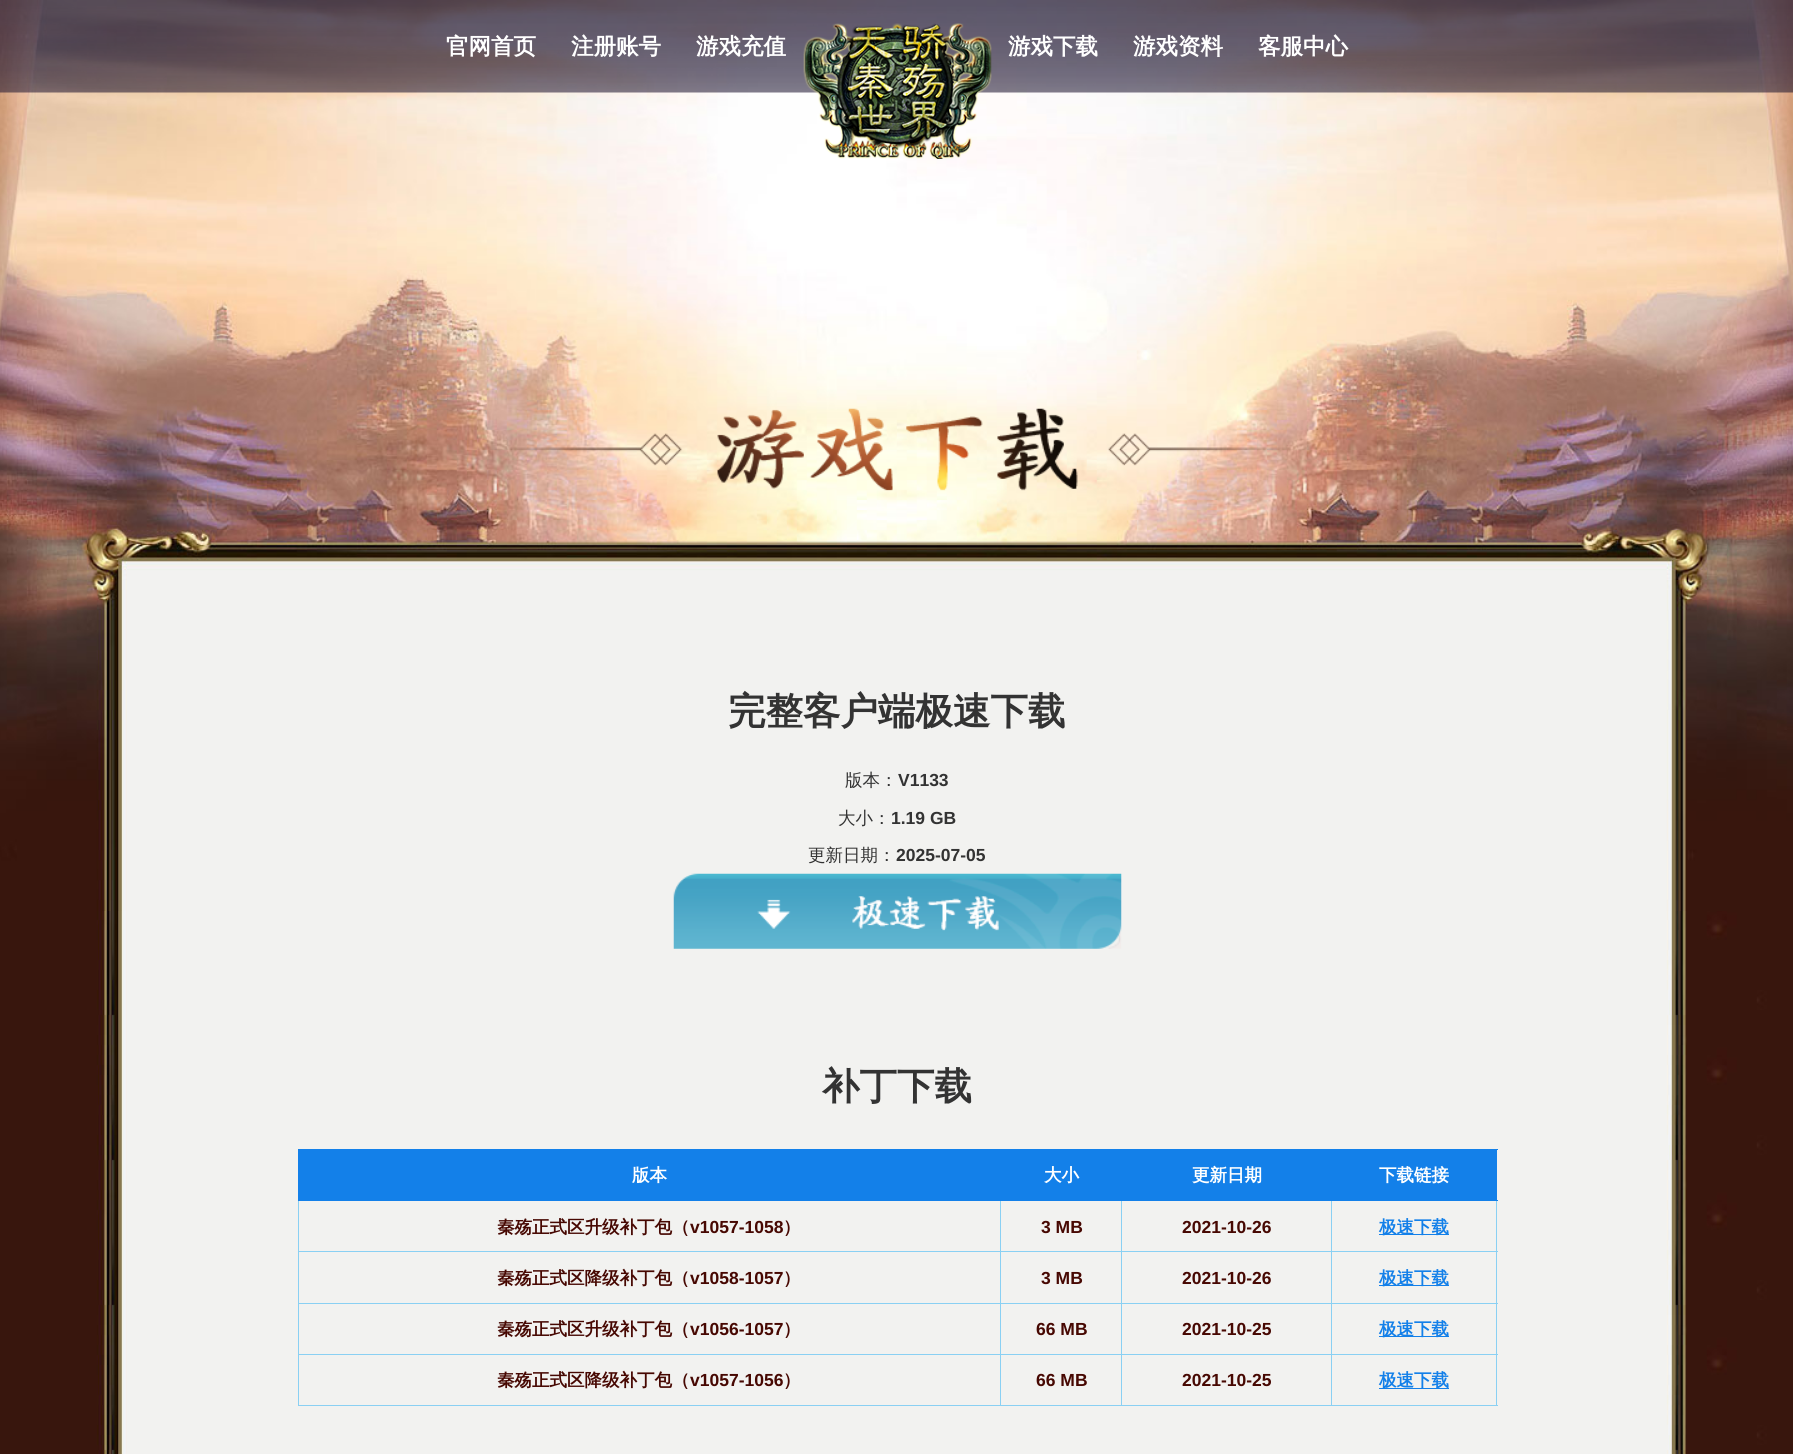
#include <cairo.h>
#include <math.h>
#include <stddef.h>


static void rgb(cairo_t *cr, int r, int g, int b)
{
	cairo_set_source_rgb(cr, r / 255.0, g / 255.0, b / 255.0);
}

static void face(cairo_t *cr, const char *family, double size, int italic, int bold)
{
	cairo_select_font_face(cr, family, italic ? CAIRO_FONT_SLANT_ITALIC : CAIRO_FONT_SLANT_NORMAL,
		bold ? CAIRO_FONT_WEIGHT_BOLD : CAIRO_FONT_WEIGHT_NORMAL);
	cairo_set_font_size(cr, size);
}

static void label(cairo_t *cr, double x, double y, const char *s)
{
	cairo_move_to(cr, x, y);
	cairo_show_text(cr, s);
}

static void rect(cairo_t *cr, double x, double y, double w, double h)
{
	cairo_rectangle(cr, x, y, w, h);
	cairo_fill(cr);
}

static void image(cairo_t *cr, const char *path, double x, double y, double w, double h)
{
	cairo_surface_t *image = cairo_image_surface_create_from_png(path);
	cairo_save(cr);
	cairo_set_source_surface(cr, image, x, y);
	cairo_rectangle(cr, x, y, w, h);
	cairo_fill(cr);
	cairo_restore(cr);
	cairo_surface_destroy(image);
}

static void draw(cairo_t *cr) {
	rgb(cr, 255, 255, 255);
	cairo_paint(cr);
	image(cr, "image0.png", 0, 911, 1793, 543);
	image(cr, "image1.png", 0, 0, 1793, 911);
	image(cr, "image2.png", 0, 0, 1793, 93);
	face(cr, "WenQuanYi Zen Hei", 22.5, 0, 1);
	rgb(cr, 255, 255, 255);
	label(cr, 446, 54, "官网首页");
	label(cr, 571, 54, "注册账号");
	label(cr, 696, 54, "游戏充值");
	image(cr, "image3.png", 803, 23, 189, 136);
	label(cr, 1008, 54, "游戏下载");
	label(cr, 1133, 54, "游戏资料");
	label(cr, 1258, 54, "客服中心");
	image(cr, "image4.png", 481, 408, 828, 83);
	face(cr, "WenQuanYi Zen Hei", 37.5, 0, 1);
	rgb(cr, 51, 51, 51);
	label(cr, 728, 724, "完整客户端极速下载");
	face(cr, "WenQuanYi Zen Hei Medium", 17.5, 0, 0);
	label(cr, 845, 786, "版本：");
	face(cr, "Liberation Sans", 17.5, 0, 1);
	label(cr, 898, 786, "V1133");
	face(cr, "WenQuanYi Zen Hei Medium", 17.5, 0, 0);
	label(cr, 838, 824, "大小：");
	face(cr, "Liberation Sans", 17.5, 0, 1);
	label(cr, 891, 824, "1.19 GB");
	face(cr, "WenQuanYi Zen Hei Medium", 17.5, 0, 0);
	label(cr, 808, 861, "更新日期：");
	face(cr, "Liberation Sans", 17.5, 0, 1);
	label(cr, 896, 861, "2025-07-05");
	image(cr, "image5.png", 673, 873, 449, 76);
	face(cr, "WenQuanYi Zen Hei", 37.5, 0, 1);
	label(cr, 822, 1099, "补丁下载");
	rgb(cr, 19, 128, 233);
	rect(cr, 298, 1150, 1198, 50);
	face(cr, "WenQuanYi Zen Hei", 17.5, 0, 1);
	rgb(cr, 255, 255, 255);
	label(cr, 632, 1181, "版本");
	label(cr, 1044, 1181, "大小");
	label(cr, 1192, 1181, "更新日期");
	rgb(cr, 19, 128, 233);
	rect(cr, 298, 1149, 1200, 1);
	rgb(cr, 138, 208, 243);
	rect(cr, 1331, 1251, 167, 1);
	rect(cr, 1331, 1303, 167, 1);
	rect(cr, 1331, 1354, 167, 1);
	rect(cr, 1496, 1354, 1, 52);
	rect(cr, 1496, 1303, 1, 52);
	rect(cr, 1496, 1200, 1, 104);
	rgb(cr, 19, 128, 233);
	rect(cr, 1496, 1149, 1, 52);
	rgb(cr, 138, 208, 243);
	rect(cr, 1331, 1405, 167, 1);
	rect(cr, 1331, 1354, 1, 52);
	rect(cr, 1121, 1354, 212, 1);
	rect(cr, 1331, 1303, 1, 52);
	rect(cr, 1121, 1303, 212, 1);
	rect(cr, 1331, 1251, 1, 53);
	rect(cr, 1121, 1251, 212, 1);
	rect(cr, 1121, 1405, 212, 1);
	rect(cr, 1121, 1354, 1, 52);
	rect(cr, 1000, 1354, 123, 1);
	rect(cr, 1121, 1303, 1, 52);
	rect(cr, 1000, 1303, 123, 1);
	rect(cr, 1121, 1251, 1, 53);
	rect(cr, 1000, 1251, 123, 1);
	rect(cr, 1000, 1405, 123, 1);
	rect(cr, 1000, 1354, 1, 52);
	rect(cr, 298, 1354, 703, 1);
	rect(cr, 1000, 1303, 1, 52);
	rect(cr, 298, 1303, 703, 1);
	rect(cr, 1000, 1251, 1, 53);
	rect(cr, 298, 1251, 703, 1);
	rect(cr, 1000, 1200, 1, 53);
	rect(cr, 1121, 1200, 1, 53);
	rect(cr, 1331, 1200, 1, 53);
	rect(cr, 298, 1405, 703, 1);
	rect(cr, 298, 1354, 1, 52);
	rect(cr, 298, 1303, 1, 52);
	rect(cr, 298, 1200, 1, 104);
	rgb(cr, 19, 128, 233);
	rect(cr, 298, 1200, 1200, 1);
	rgb(cr, 255, 255, 255);
	label(cr, 1379, 1181, "下载链接");
	rgb(cr, 71, 8, 2);
	label(cr, 497, 1233, "秦殇正式区升级补丁包（");
	face(cr, "Liberation Sans", 17.5, 0, 1);
	label(cr, 690, 1233, "v1057-1058");
	face(cr, "WenQuanYi Zen Hei", 17.5, 0, 1);
	label(cr, 783, 1233, "）");
	face(cr, "Liberation Sans", 17.5, 0, 1);
	label(cr, 1041, 1233, "3 MB");
	label(cr, 1182, 1233, "2021-10-26");
	rgb(cr, 19, 128, 233);
	rect(cr, 1379, 1234, 70, 1);
	face(cr, "WenQuanYi Zen Hei", 17.5, 0, 1);
	label(cr, 1379, 1233, "极速下载");
	rgb(cr, 71, 8, 2);
	label(cr, 497, 1284, "秦殇正式区降级补丁包（");
	face(cr, "Liberation Sans", 17.5, 0, 1);
	label(cr, 690, 1284, "v1058-1057");
	face(cr, "WenQuanYi Zen Hei", 17.5, 0, 1);
	label(cr, 783, 1284, "）");
	face(cr, "Liberation Sans", 17.5, 0, 1);
	label(cr, 1041, 1284, "3 MB");
	label(cr, 1182, 1284, "2021-10-26");
	rgb(cr, 19, 128, 233);
	rect(cr, 1379, 1285, 70, 1);
	face(cr, "WenQuanYi Zen Hei", 17.5, 0, 1);
	label(cr, 1379, 1284, "极速下载");
	rgb(cr, 71, 8, 2);
	label(cr, 497, 1335, "秦殇正式区升级补丁包（");
	face(cr, "Liberation Sans", 17.5, 0, 1);
	label(cr, 690, 1335, "v1056-1057");
	face(cr, "WenQuanYi Zen Hei", 17.5, 0, 1);
	label(cr, 783, 1335, "）");
	face(cr, "Liberation Sans", 17.5, 0, 1);
	label(cr, 1036, 1335, "66 MB");
	label(cr, 1182, 1335, "2021-10-25");
	rgb(cr, 19, 128, 233);
	rect(cr, 1379, 1336, 70, 1);
	face(cr, "WenQuanYi Zen Hei", 17.5, 0, 1);
	label(cr, 1379, 1335, "极速下载");
	rgb(cr, 71, 8, 2);
	label(cr, 497, 1386, "秦殇正式区降级补丁包（");
	face(cr, "Liberation Sans", 17.5, 0, 1);
	label(cr, 690, 1386, "v1057-1056");
	face(cr, "WenQuanYi Zen Hei", 17.5, 0, 1);
	label(cr, 783, 1386, "）");
	face(cr, "Liberation Sans", 17.5, 0, 1);
	label(cr, 1036, 1386, "66 MB");
	label(cr, 1182, 1386, "2021-10-25");
	rgb(cr, 19, 128, 233);
	rect(cr, 1379, 1388, 70, 1);
	face(cr, "WenQuanYi Zen Hei", 17.5, 0, 1);
	label(cr, 1379, 1386, "极速下载");
}

int main(void) {
	cairo_surface_t *surface = cairo_image_surface_create(CAIRO_FORMAT_RGB24, 1793, 1454);
	cairo_t *cr = cairo_create(surface);
	cairo_font_options_t *options = cairo_font_options_create();
	cairo_font_options_set_hint_metrics(options, CAIRO_HINT_METRICS_OFF);
	cairo_font_options_set_hint_style(options, CAIRO_HINT_STYLE_NONE);
	cairo_set_font_options(cr, options);
	cairo_set_miter_limit(cr, 4);
	draw(cr);
	cairo_surface_write_to_png(surface, "render.png");
	cairo_font_options_destroy(options);
	cairo_destroy(cr);
	cairo_surface_destroy(surface);
	return 0;
}
